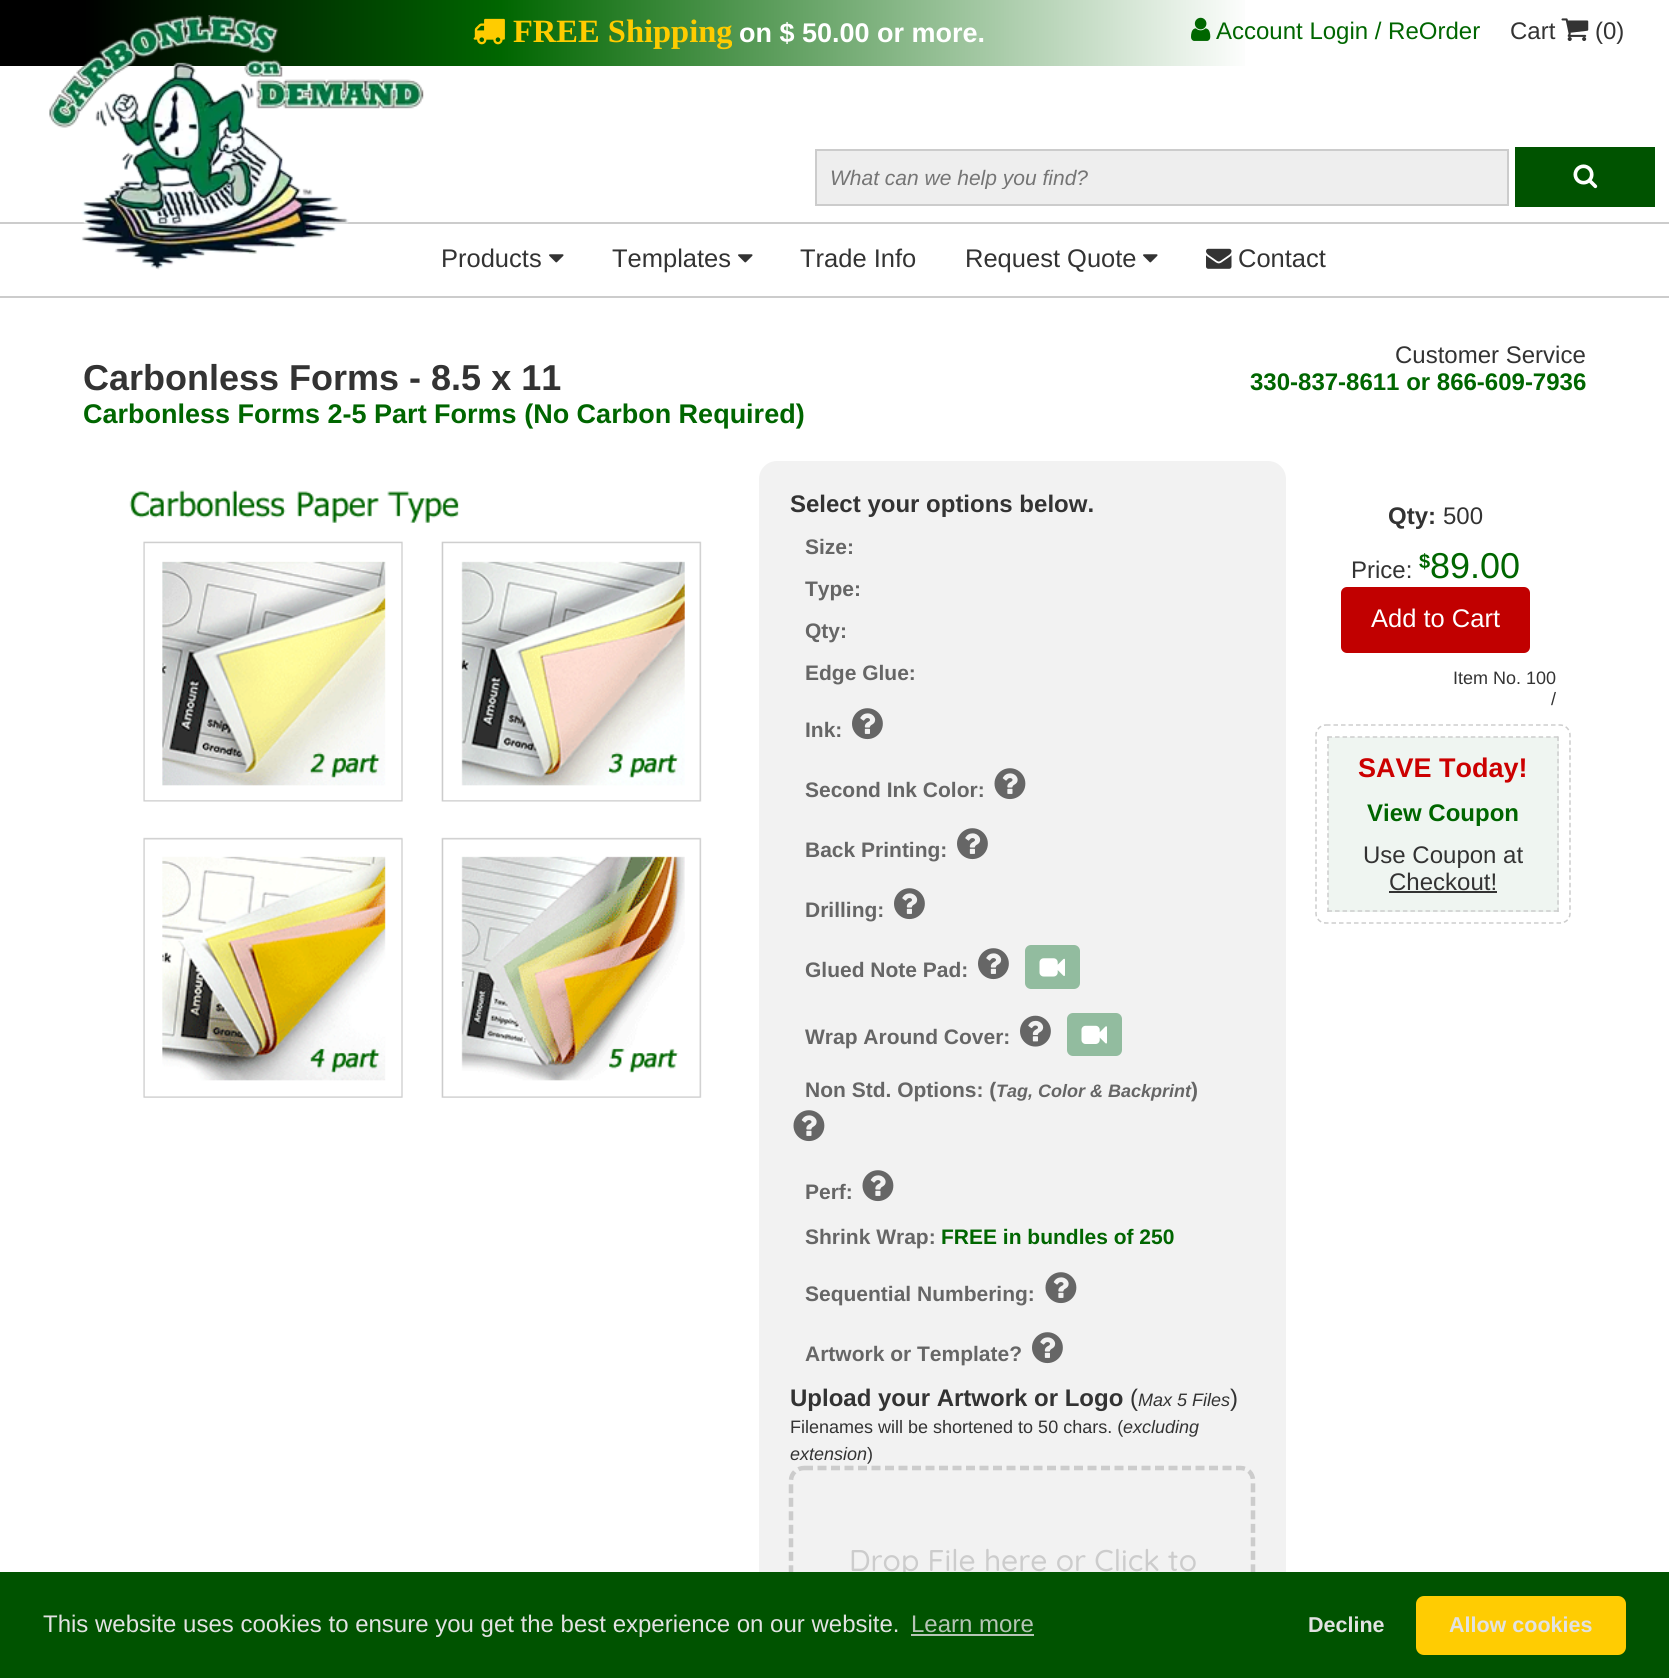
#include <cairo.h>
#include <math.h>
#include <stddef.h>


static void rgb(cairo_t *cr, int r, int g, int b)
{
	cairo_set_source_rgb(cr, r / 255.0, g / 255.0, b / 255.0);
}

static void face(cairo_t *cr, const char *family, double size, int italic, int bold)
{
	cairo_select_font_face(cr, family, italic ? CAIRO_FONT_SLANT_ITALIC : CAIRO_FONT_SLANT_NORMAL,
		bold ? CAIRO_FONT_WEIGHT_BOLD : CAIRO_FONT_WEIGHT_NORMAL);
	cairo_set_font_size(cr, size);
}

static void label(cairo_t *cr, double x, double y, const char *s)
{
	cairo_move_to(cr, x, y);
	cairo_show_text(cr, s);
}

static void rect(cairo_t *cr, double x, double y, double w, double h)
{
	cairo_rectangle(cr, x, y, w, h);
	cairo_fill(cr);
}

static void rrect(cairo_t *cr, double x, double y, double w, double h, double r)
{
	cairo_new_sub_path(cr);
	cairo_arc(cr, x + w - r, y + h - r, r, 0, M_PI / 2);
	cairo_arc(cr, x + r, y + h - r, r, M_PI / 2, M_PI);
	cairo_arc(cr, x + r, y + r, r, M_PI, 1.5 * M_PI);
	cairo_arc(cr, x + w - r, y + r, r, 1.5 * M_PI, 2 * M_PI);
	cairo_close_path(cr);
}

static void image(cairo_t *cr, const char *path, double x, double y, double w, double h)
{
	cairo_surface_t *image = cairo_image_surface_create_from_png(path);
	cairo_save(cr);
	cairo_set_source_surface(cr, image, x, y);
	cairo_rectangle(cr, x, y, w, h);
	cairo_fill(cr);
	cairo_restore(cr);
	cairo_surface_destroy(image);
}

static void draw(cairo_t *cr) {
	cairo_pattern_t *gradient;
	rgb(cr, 255, 255, 255);
	cairo_paint(cr);
	gradient = cairo_pattern_create_linear(0, 33, 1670, 33);
	cairo_pattern_add_color_stop_rgba(gradient, 0.05, 0, 0, 0, 1);
	cairo_pattern_add_color_stop_rgba(gradient, 0.3, 0, 0.4, 0, 1);
	cairo_pattern_add_color_stop_rgba(gradient, 0.75, 1, 1, 1, 1);
	cairo_pattern_add_color_stop_rgba(gradient, 1, 1, 1, 1, 1);
	cairo_set_source(cr, gradient);
	cairo_pattern_destroy(gradient);
	rect(cr, 0, 0, 1245, 66);
	rgb(cr, 204, 204, 204);
	rect(cr, 0, 222, 1669, 2);
	image(cr, "image0.png", 49, 15, 375, 255);
	image(cr, "image1.png", 473, 18, 32, 27);
	face(cr, "Liberation Serif", 32.5, 0, 1);
	rgb(cr, 255, 204, 0);
	label(cr, 513, 42, "FREE Shipping");
	face(cr, "Liberation Sans", 27, 0, 1);
	rgb(cr, 255, 255, 255);
	label(cr, 739, 42, "on $ 50.00 or more.");
	image(cr, "image2.png", 1191, 17, 20, 24);
	face(cr, "Liberation Sans", 24, 0, 0);
	rgb(cr, 0, 102, 0);
	label(cr, 1216, 39, "Account Login / ReOrder");
	rgb(cr, 51, 51, 51);
	label(cr, 1510, 39, "Cart");
	image(cr, "image3.png", 1561, 18, 28, 23);
	label(cr, 1595, 39, "(0)");
	rgb(cr, 238, 238, 238);
	cairo_rectangle(cr, 816, 150, 692, 55);
	cairo_fill_preserve(cr);
	rgb(cr, 204, 204, 204);
	cairo_stroke(cr);
	cairo_save(cr);
	cairo_rectangle(cr, 831, 165, 662, 24);
	cairo_clip(cr);
	face(cr, "Liberation Sans", 21, 1, 0);
	rgb(cr, 117, 117, 117);
	label(cr, 830, 185, "What can we help you find?");
	cairo_restore(cr);
	rgb(cr, 0, 83, 0);
	rect(cr, 1515, 147, 140, 60);
	image(cr, "image4.png", 1573, 164, 25, 25);
	rgb(cr, 204, 204, 204);
	rect(cr, 0, 296, 1669, 2);
	face(cr, "Liberation Sans", 25.5, 0, 0);
	rgb(cr, 51, 51, 51);
	label(cr, 441, 267, "Products");
	image(cr, "image5.png", 549, 254, 15, 9);
	label(cr, 612, 267, "Templates");
	image(cr, "image5.png", 738, 254, 15, 9);
	label(cr, 800, 267, "Trade Info");
	label(cr, 965, 267, "Request Quote");
	image(cr, "image5.png", 1143, 254, 15, 9);
	image(cr, "image6.png", 1206, 248, 26, 21);
	label(cr, 1238, 267, "Contact");
	face(cr, "Liberation Sans", 36, 0, 1);
	label(cr, 83, 390, "Carbonless Forms - 8.5 x 11");
	face(cr, "Liberation Sans", 24, 0, 0);
	label(cr, 1395, 363, "Customer Service");
	face(cr, "Liberation Sans", 24, 0, 1);
	rgb(cr, 0, 102, 0);
	label(cr, 1250, 390, "330-837-8611 or 866-609-7936");
	face(cr, "Liberation Sans", 27, 0, 1);
	label(cr, 83, 423, "Carbonless Forms 2-5 Part Forms (No Carbon Required)");
	image(cr, "image7.png", 129, 490, 573, 608);
	rgb(cr, 242, 242, 242);
	rrect(cr, 759, 461, 527, 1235, 18);
	cairo_fill(cr);
	face(cr, "Liberation Sans", 24, 0, 1);
	rgb(cr, 51, 51, 51);
	label(cr, 790, 512, "Select your options below.");
	face(cr, "Liberation Sans", 21, 0, 1);
	rgb(cr, 102, 102, 102);
	label(cr, 805, 554, "Size:");
	label(cr, 805, 596, "Type:");
	label(cr, 805, 638, "Qty:");
	label(cr, 805, 680, "Edge Glue:");
	label(cr, 805, 737, "Ink:");
	image(cr, "image8.png", 852, 708, 31, 32);
	label(cr, 805, 797, "Second Ink Color:");
	image(cr, "image9.png", 994, 768, 32, 32);
	label(cr, 805, 857, "Back Printing:");
	image(cr, "image8.png", 957, 828, 31, 32);
	label(cr, 805, 917, "Drilling:");
	image(cr, "image8.png", 894, 888, 31, 32);
	label(cr, 805, 977, "Glued Note Pad:");
	image(cr, "image8.png", 978, 948, 31, 32);
	rgb(cr, 146, 188, 159);
	rrect(cr, 1025, 945, 55, 44, 6);
	cairo_fill(cr);
	image(cr, "image10.png", 1039, 958, 26, 19);
	rgb(cr, 102, 102, 102);
	label(cr, 805, 1044, "Wrap Around Cover:");
	image(cr, "image11.png", 1020, 1015, 31, 32);
	rgb(cr, 146, 188, 159);
	rrect(cr, 1067, 1013, 55, 43, 6);
	cairo_fill(cr);
	image(cr, "image12.png", 1081, 1025, 26, 19);
	rgb(cr, 102, 102, 102);
	label(cr, 805, 1097, "Non Std. Options: (");
	face(cr, "Liberation Sans", 18, 1, 1);
	label(cr, 996, 1097, "Tag, Color & Backprint");
	face(cr, "Liberation Sans", 21, 0, 1);
	label(cr, 1191, 1097, ")");
	image(cr, "image9.png", 793, 1110, 32, 32);
	label(cr, 805, 1199, "Perf:");
	image(cr, "image9.png", 862, 1170, 32, 32);
	label(cr, 805, 1244, "Shrink Wrap:");
	rgb(cr, 0, 102, 0);
	label(cr, 941, 1244, "FREE in bundles of 250");
	rgb(cr, 102, 102, 102);
	label(cr, 805, 1301, "Sequential Numbering:");
	image(cr, "image9.png", 1045, 1272, 32, 32);
	label(cr, 805, 1361, "Artwork or Template?");
	image(cr, "image8.png", 1032, 1332, 31, 32);
	face(cr, "Liberation Sans", 24, 0, 1);
	rgb(cr, 51, 51, 51);
	label(cr, 790, 1406, "Upload your Artwork or Logo");
	face(cr, "Liberation Sans", 24, 0, 0);
	label(cr, 1130, 1406, "(");
	face(cr, "Liberation Sans", 18, 1, 0);
	label(cr, 1138, 1406, "Max 5 Files");
	face(cr, "Liberation Sans", 24, 0, 0);
	label(cr, 1230, 1406, ")");
	face(cr, "Liberation Sans", 18, 0, 0);
	label(cr, 790, 1433, "Filenames will be shortened to 50 chars. (");
	face(cr, "Liberation Sans", 18, 1, 0);
	label(cr, 1123, 1433, "excluding");
	label(cr, 790, 1460, "extension");
	face(cr, "Liberation Sans", 18, 0, 0);
	label(cr, 867, 1460, ")");
	cairo_new_path(cr);
	cairo_move_to(cr, 804, 1468);
	cairo_line_to(cr, 1240.5, 1468);
	cairo_curve_to(cr, 1247.5, 1468, 1253, 1473.5, 1253, 1480.5);
	cairo_line_to(cr, 1253, 1675.5);
	cairo_curve_to(cr, 1253, 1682.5, 1247.5, 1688, 1240.5, 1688);
	cairo_line_to(cr, 804, 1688);
	cairo_curve_to(cr, 797, 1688, 791, 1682.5, 791, 1675.5);
	cairo_line_to(cr, 791, 1480.5);
	cairo_curve_to(cr, 791, 1473.5, 797, 1468, 804, 1468);
	cairo_close_path(cr);
	rgb(cr, 204, 204, 204);
	cairo_set_line_width(cr, 4.5);
	cairo_set_dash(cr, (double[]){9, 4.5}, 2, 0);
	cairo_stroke(cr);
	face(cr, "Quicksand Medium", 30, 0, 0);
	label(cr, 849, 1571, "Drop File here or Click to");
	face(cr, "Liberation Sans", 24, 0, 1);
	rgb(cr, 51, 51, 51);
	label(cr, 1388, 524, "Qty:");
	face(cr, "Liberation Sans", 24, 0, 0);
	label(cr, 1443, 524, "500");
	label(cr, 1351, 578, "Price:");
	face(cr, "Liberation Sans", 20, 0, 1);
	rgb(cr, 0, 102, 0);
	label(cr, 1419, 568, "$");
	face(cr, "Liberation Sans", 36, 0, 0);
	label(cr, 1430, 578, "89.00");
	rgb(cr, 193, 0, 0);
	rrect(cr, 1341, 587, 189, 66, 6);
	cairo_fill(cr);
	face(cr, "Liberation Sans", 25.5, 0, 0);
	rgb(cr, 255, 255, 255);
	label(cr, 1371, 627, "Add to Cart");
	face(cr, "Liberation Sans", 18, 0, 0);
	rgb(cr, 51, 51, 51);
	label(cr, 1453, 684, "Item No. 100");
	label(cr, 1551, 705, "/");
	cairo_new_path(cr);
	cairo_move_to(cr, 1326, 725);
	cairo_line_to(cr, 1560, 725);
	cairo_curve_to(cr, 1565.5, 725, 1570, 729.5, 1570, 735);
	cairo_line_to(cr, 1570, 913.5);
	cairo_curve_to(cr, 1570, 919, 1565.5, 923, 1560, 923);
	cairo_line_to(cr, 1326, 923);
	cairo_curve_to(cr, 1320.5, 923, 1316, 919, 1316, 913.5);
	cairo_line_to(cr, 1316, 735);
	cairo_curve_to(cr, 1316, 729.5, 1320.5, 725, 1326, 725);
	cairo_close_path(cr);
	rgb(cr, 204, 204, 204);
	cairo_set_line_width(cr, 1.5);
	cairo_set_dash(cr, (double[]){4.5, 3}, 2, 0);
	cairo_stroke(cr);
	rgb(cr, 239, 245, 241);
	rect(cr, 1328, 737, 231, 175);
	cairo_new_path(cr);
	cairo_move_to(cr, 1327.5, 737);
	cairo_line_to(cr, 1558.5, 737);
	rgb(cr, 204, 204, 204);
	cairo_set_dash(cr, (double[]){4.5, 3.04}, 2, 0);
	cairo_stroke(cr);
	cairo_new_path(cr);
	cairo_move_to(cr, 1558, 736.5);
	cairo_line_to(cr, 1558, 912);
	cairo_set_dash(cr, (double[]){4.5, 2.94}, 2, 0);
	cairo_stroke(cr);
	cairo_new_path(cr);
	cairo_move_to(cr, 1327.5, 911);
	cairo_line_to(cr, 1558.5, 911);
	cairo_set_dash(cr, (double[]){4.5, 3.04}, 2, 0);
	cairo_stroke(cr);
	cairo_new_path(cr);
	cairo_move_to(cr, 1328, 736.5);
	cairo_line_to(cr, 1328, 912);
	cairo_set_dash(cr, (double[]){4.5, 2.94}, 2, 0);
	cairo_stroke(cr);
	face(cr, "Liberation Sans", 27, 0, 1);
	rgb(cr, 204, 0, 0);
	label(cr, 1358, 777, "SAVE Today!");
	face(cr, "Liberation Sans", 24, 0, 1);
	rgb(cr, 0, 102, 0);
	label(cr, 1367, 821, "View Coupon");
	face(cr, "Liberation Sans", 24, 0, 0);
	rgb(cr, 51, 51, 51);
	label(cr, 1363, 863, "Use Coupon at");
	label(cr, 1389, 890, "Checkout!");
	rect(cr, 1389, 891, 108, 2);
	rgb(cr, 0, 83, 0);
	rect(cr, 0, 1572, 1669, 106);
	rgb(cr, 226, 226, 226);
	label(cr, 43, 1632, "This website uses cookies to ensure you get the best experience on our website.");
	rgb(cr, 181, 197, 181);
	label(cr, 911, 1632, "Learn more");
	rect(cr, 911, 1634, 123, 2);
	face(cr, "Liberation Sans", 21.5, 0, 1);
	rgb(cr, 226, 226, 226);
	label(cr, 1308, 1632, "Decline");
	rgb(cr, 255, 204, 2);
	rrect(cr, 1417.5, 1597.5, 207, 56, 6.5);
	cairo_fill_preserve(cr);
	cairo_set_line_width(cr, 3);
	cairo_set_dash(cr, NULL, 0, 0);
	cairo_stroke(cr);
	rgb(cr, 226, 226, 226);
	label(cr, 1449, 1632, "Allow cookies");
}

int main(void) {
	cairo_surface_t *surface = cairo_image_surface_create(CAIRO_FORMAT_RGB24, 1669, 1678);
	cairo_t *cr = cairo_create(surface);
	cairo_font_options_t *options = cairo_font_options_create();
	cairo_font_options_set_hint_metrics(options, CAIRO_HINT_METRICS_OFF);
	cairo_font_options_set_hint_style(options, CAIRO_HINT_STYLE_NONE);
	cairo_set_font_options(cr, options);
	cairo_set_miter_limit(cr, 4);
	draw(cr);
	cairo_surface_write_to_png(surface, "render.png");
	cairo_font_options_destroy(options);
	cairo_destroy(cr);
	cairo_surface_destroy(surface);
	return 0;
}
